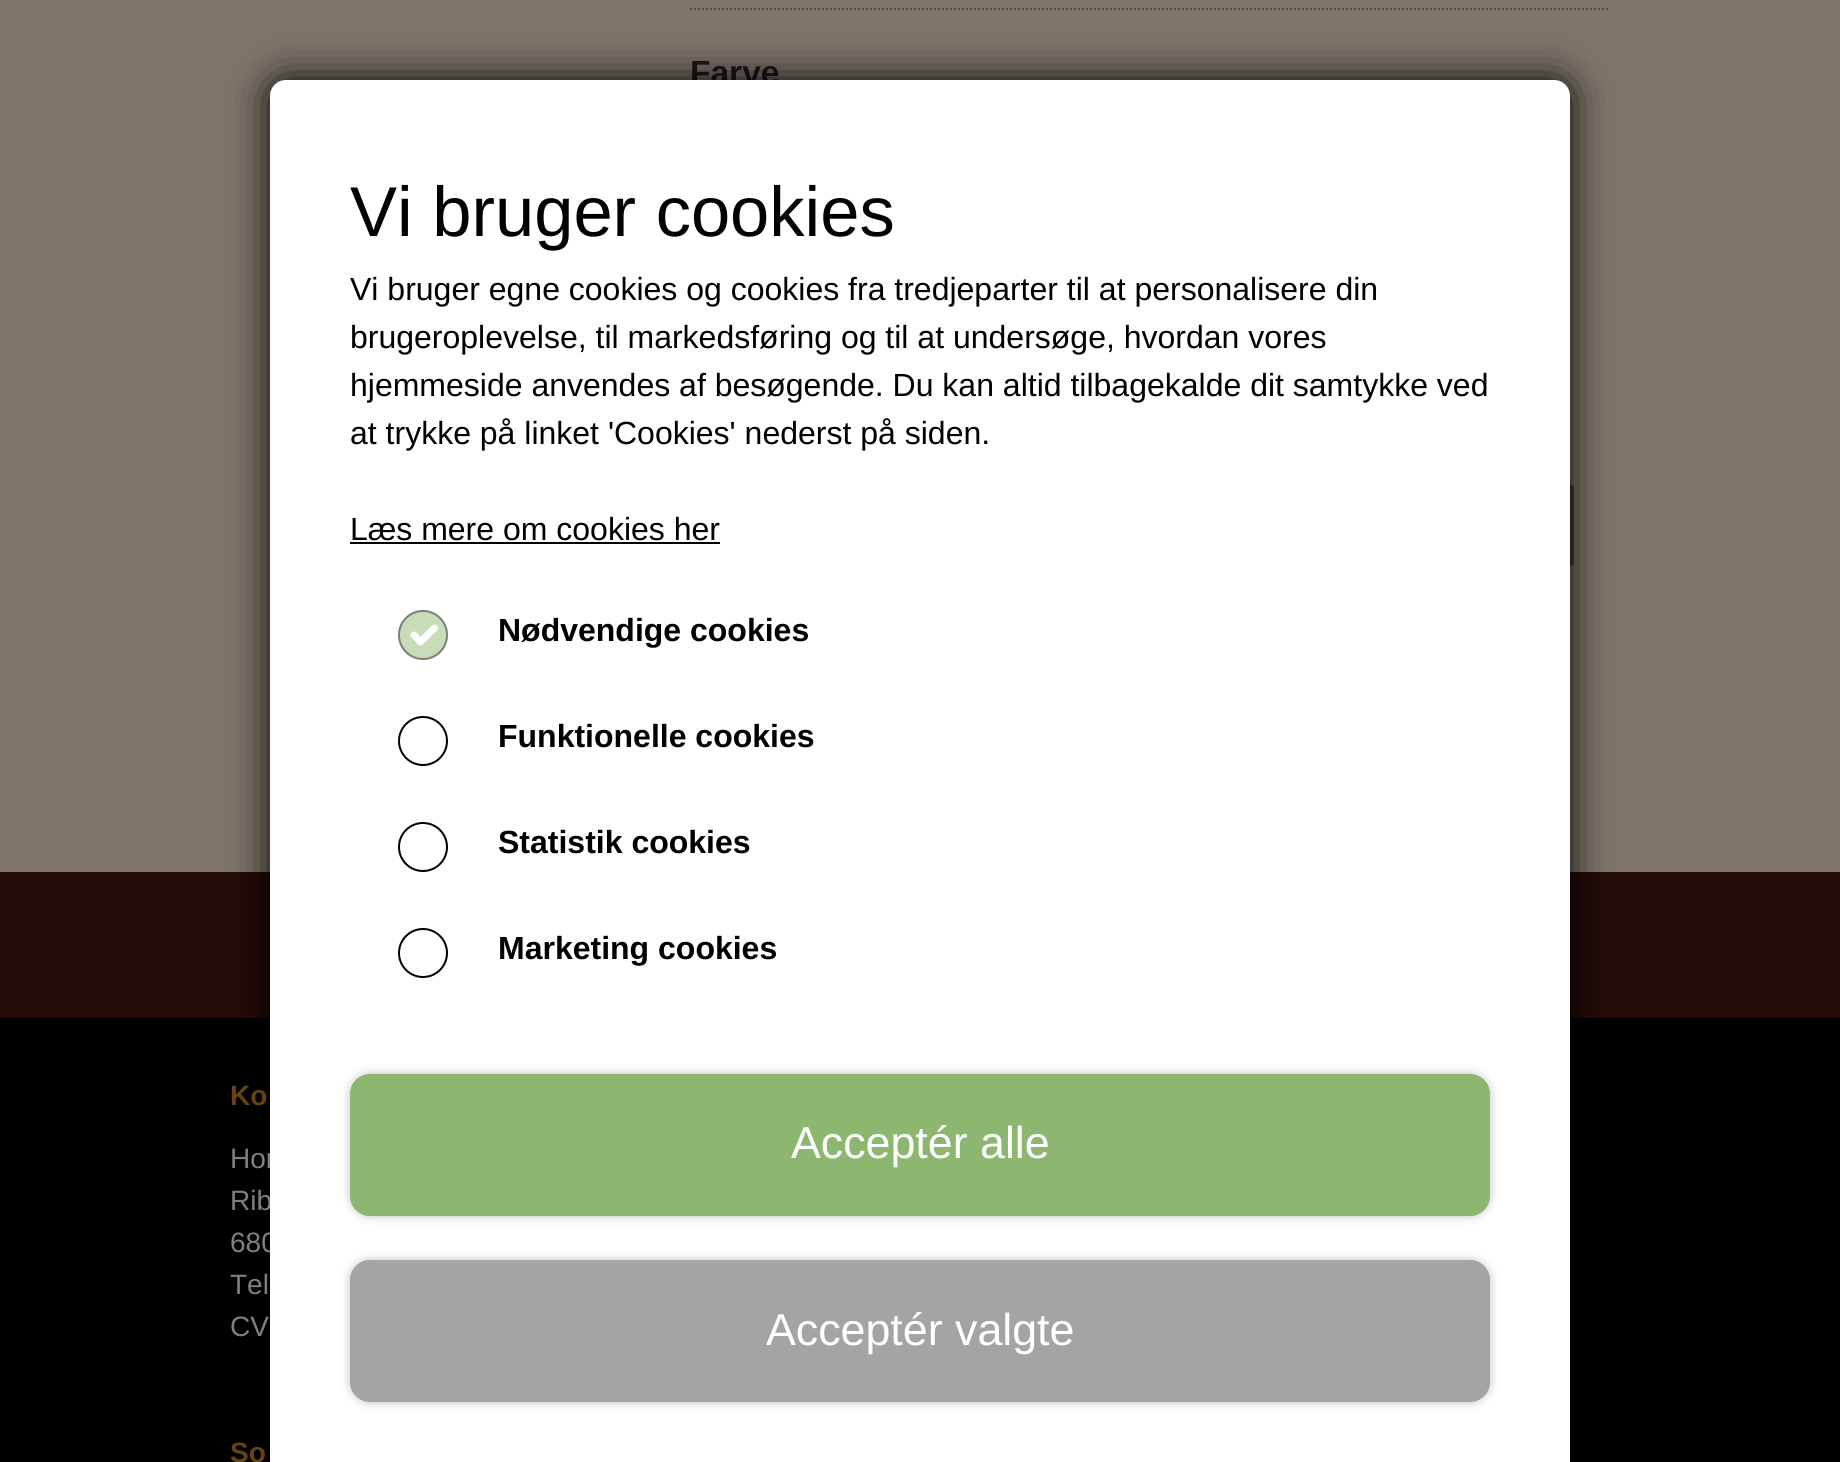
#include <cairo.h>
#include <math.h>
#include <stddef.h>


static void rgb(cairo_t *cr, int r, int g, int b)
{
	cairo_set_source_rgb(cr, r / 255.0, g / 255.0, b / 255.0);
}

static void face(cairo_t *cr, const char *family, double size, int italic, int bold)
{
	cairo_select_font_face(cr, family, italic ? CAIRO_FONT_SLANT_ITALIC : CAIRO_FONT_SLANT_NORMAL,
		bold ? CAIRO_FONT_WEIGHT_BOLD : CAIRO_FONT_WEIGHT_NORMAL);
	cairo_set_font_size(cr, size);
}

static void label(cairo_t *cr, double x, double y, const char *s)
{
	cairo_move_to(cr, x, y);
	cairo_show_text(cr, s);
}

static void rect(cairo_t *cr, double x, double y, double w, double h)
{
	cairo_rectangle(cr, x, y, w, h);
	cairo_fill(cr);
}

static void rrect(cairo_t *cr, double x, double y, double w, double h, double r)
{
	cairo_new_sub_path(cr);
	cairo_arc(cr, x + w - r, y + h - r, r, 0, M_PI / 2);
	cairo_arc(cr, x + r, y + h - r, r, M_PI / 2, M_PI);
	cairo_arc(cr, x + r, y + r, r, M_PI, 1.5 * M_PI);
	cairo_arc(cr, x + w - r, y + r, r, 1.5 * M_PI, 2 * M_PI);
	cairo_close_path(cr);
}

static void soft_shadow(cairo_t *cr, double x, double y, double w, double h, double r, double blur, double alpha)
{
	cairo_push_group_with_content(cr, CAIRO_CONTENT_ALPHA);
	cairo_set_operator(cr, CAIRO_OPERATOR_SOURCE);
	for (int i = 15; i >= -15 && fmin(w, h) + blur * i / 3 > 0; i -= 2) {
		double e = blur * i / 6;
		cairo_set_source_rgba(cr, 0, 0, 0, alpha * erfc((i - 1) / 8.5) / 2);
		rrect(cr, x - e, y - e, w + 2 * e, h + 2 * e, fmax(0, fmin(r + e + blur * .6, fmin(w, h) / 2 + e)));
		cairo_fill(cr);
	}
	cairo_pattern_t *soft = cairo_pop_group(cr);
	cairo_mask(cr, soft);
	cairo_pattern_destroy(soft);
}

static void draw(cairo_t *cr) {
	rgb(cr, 0, 0, 0);
	cairo_paint(cr);
	rgb(cr, 125, 117, 106);
	rect(cr, 0, 0, 1840, 872);
	cairo_new_path(cr);
	cairo_move_to(cr, 690, 9);
	cairo_line_to(cr, 1610, 9);
	rgb(cr, 78, 78, 78);
	cairo_set_dash(cr, (double[]){2, 2}, 2, 0);
	cairo_stroke(cr);
	face(cr, "Arimo", 33.5, 0, 1);
	rgb(cr, 26, 26, 26);
	label(cr, 690, 84, "Farve");
	rgb(cr, 81, 65, 57);
	rrect(cr, 1422, 484, 152, 82, 4);
	cairo_fill(cr);
	rgb(cr, 37, 12, 8);
	rect(cr, 0, 872, 1840, 146);
	rgb(cr, 0, 0, 0);
	soft_shadow(cr, 270, 80, 1300, 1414, 16, 20, 1);
	face(cr, "Arimo", 28, 0, 0);
	rgb(cr, 128, 128, 128);
	label(cr, 230, 1168, "Hor");
	label(cr, 230, 1210, "Rib");
	label(cr, 230, 1252, "680");
	rgb(cr, 255, 255, 255);
	cairo_new_path(cr);
	cairo_move_to(cr, 286, 80);
	cairo_line_to(cr, 1554, 80);
	cairo_curve_to(cr, 1563, 80, 1570, 87, 1570, 96);
	cairo_line_to(cr, 1570, 1462);
	cairo_line_to(cr, 270, 1462);
	cairo_line_to(cr, 270, 96);
	cairo_curve_to(cr, 270, 87, 277, 80, 286, 80);
	cairo_close_path(cr);
	cairo_fill(cr);
	face(cr, "Arimo", 70.5, 0, 0);
	rgb(cr, 0, 0, 0);
	label(cr, 350, 236, "Vi bruger cookies");
	face(cr, "Arimo", 32, 0, 0);
	label(cr, 350, 300, "Vi bruger egne cookies og cookies fra tredjeparter til at personalisere din");
	label(cr, 350, 348, "brugeroplevelse, til markedsføring og til at undersøge, hvordan vores");
	label(cr, 350, 396, "hjemmeside anvendes af besøgende. Du kan altid tilbagekalde dit samtykke ved");
	label(cr, 350, 444, "at trykke på linket 'Cookies' nederst på siden.");
	label(cr, 350, 540, "Læs mere om cookies her");
	rect(cr, 350, 542, 370, 2);
	rgb(cr, 200, 220, 186);
	cairo_new_path(cr);
	cairo_arc(cr, 423, 635, 25, 0, 2 * M_PI);
	cairo_fill(cr);
	cairo_new_path(cr);
	cairo_move_to(cr, 414, 635);
	cairo_line_to(cr, 420.5, 642);
	cairo_line_to(cr, 434.5, 628);
	rgb(cr, 255, 255, 255);
	cairo_set_line_width(cr, 6.9);
	cairo_set_line_cap(cr, CAIRO_LINE_CAP_ROUND);
	cairo_set_line_join(cr, CAIRO_LINE_JOIN_ROUND);
	cairo_set_dash(cr, NULL, 0, 0);
	cairo_stroke(cr);
	cairo_arc(cr, 423, 635, 24, 0, 2 * M_PI);
	rgb(cr, 128, 128, 128);
	cairo_set_line_width(cr, 2);
	cairo_set_line_cap(cr, CAIRO_LINE_CAP_BUTT);
	cairo_set_line_join(cr, CAIRO_LINE_JOIN_MITER);
	cairo_stroke(cr);
	face(cr, "Arimo", 32, 0, 1);
	rgb(cr, 0, 0, 0);
	label(cr, 498, 641, "Nødvendige cookies");
	cairo_new_path(cr);
	cairo_arc(cr, 423, 741, 24, 0, 2 * M_PI);
	cairo_stroke(cr);
	label(cr, 498, 747, "Funktionelle cookies");
	cairo_new_path(cr);
	cairo_arc(cr, 423, 847, 24, 0, 2 * M_PI);
	cairo_stroke(cr);
	label(cr, 498, 853, "Statistik cookies");
	cairo_new_path(cr);
	cairo_arc(cr, 423, 953, 24, 0, 2 * M_PI);
	cairo_stroke(cr);
	label(cr, 498, 959, "Marketing cookies");
	rgb(cr, 0, 0, 0);
	soft_shadow(cr, 350, 1074, 1140, 142, 20, 5, 0.25);
	rgb(cr, 141, 182, 113);
	rrect(cr, 350, 1074, 1140, 142, 20);
	cairo_fill(cr);
	face(cr, "Arimo", 44.75, 0, 0);
	rgb(cr, 255, 255, 255);
	label(cr, 791, 1158, "Acceptér alle");
	rgb(cr, 0, 0, 0);
	soft_shadow(cr, 350, 1260, 1140, 142, 20, 5, 0.25);
	rgb(cr, 164, 164, 164);
	rrect(cr, 350, 1260, 1140, 142, 20);
	cairo_fill(cr);
	rgb(cr, 255, 255, 255);
	label(cr, 766, 1345, "Acceptér valgte");
	face(cr, "Arimo", 28, 0, 1);
	rgb(cr, 103, 66, 19);
	label(cr, 230, 1105, "Ko");
	face(cr, "Arimo", 28, 0, 0);
	rgb(cr, 128, 128, 128);
	label(cr, 230, 1294, "Tel");
	label(cr, 230, 1336, "CV");
	face(cr, "Arimo", 28, 0, 1);
	rgb(cr, 103, 66, 19);
	label(cr, 230, 1462, "So");
}

int main(void) {
	cairo_surface_t *surface = cairo_image_surface_create(CAIRO_FORMAT_RGB24, 1840, 1462);
	cairo_t *cr = cairo_create(surface);
	cairo_font_options_t *options = cairo_font_options_create();
	cairo_font_options_set_hint_metrics(options, CAIRO_HINT_METRICS_OFF);
	cairo_font_options_set_hint_style(options, CAIRO_HINT_STYLE_NONE);
	cairo_set_font_options(cr, options);
	cairo_set_miter_limit(cr, 4);
	draw(cr);
	cairo_surface_write_to_png(surface, "render.png");
	cairo_font_options_destroy(options);
	cairo_destroy(cr);
	cairo_surface_destroy(surface);
	return 0;
}
